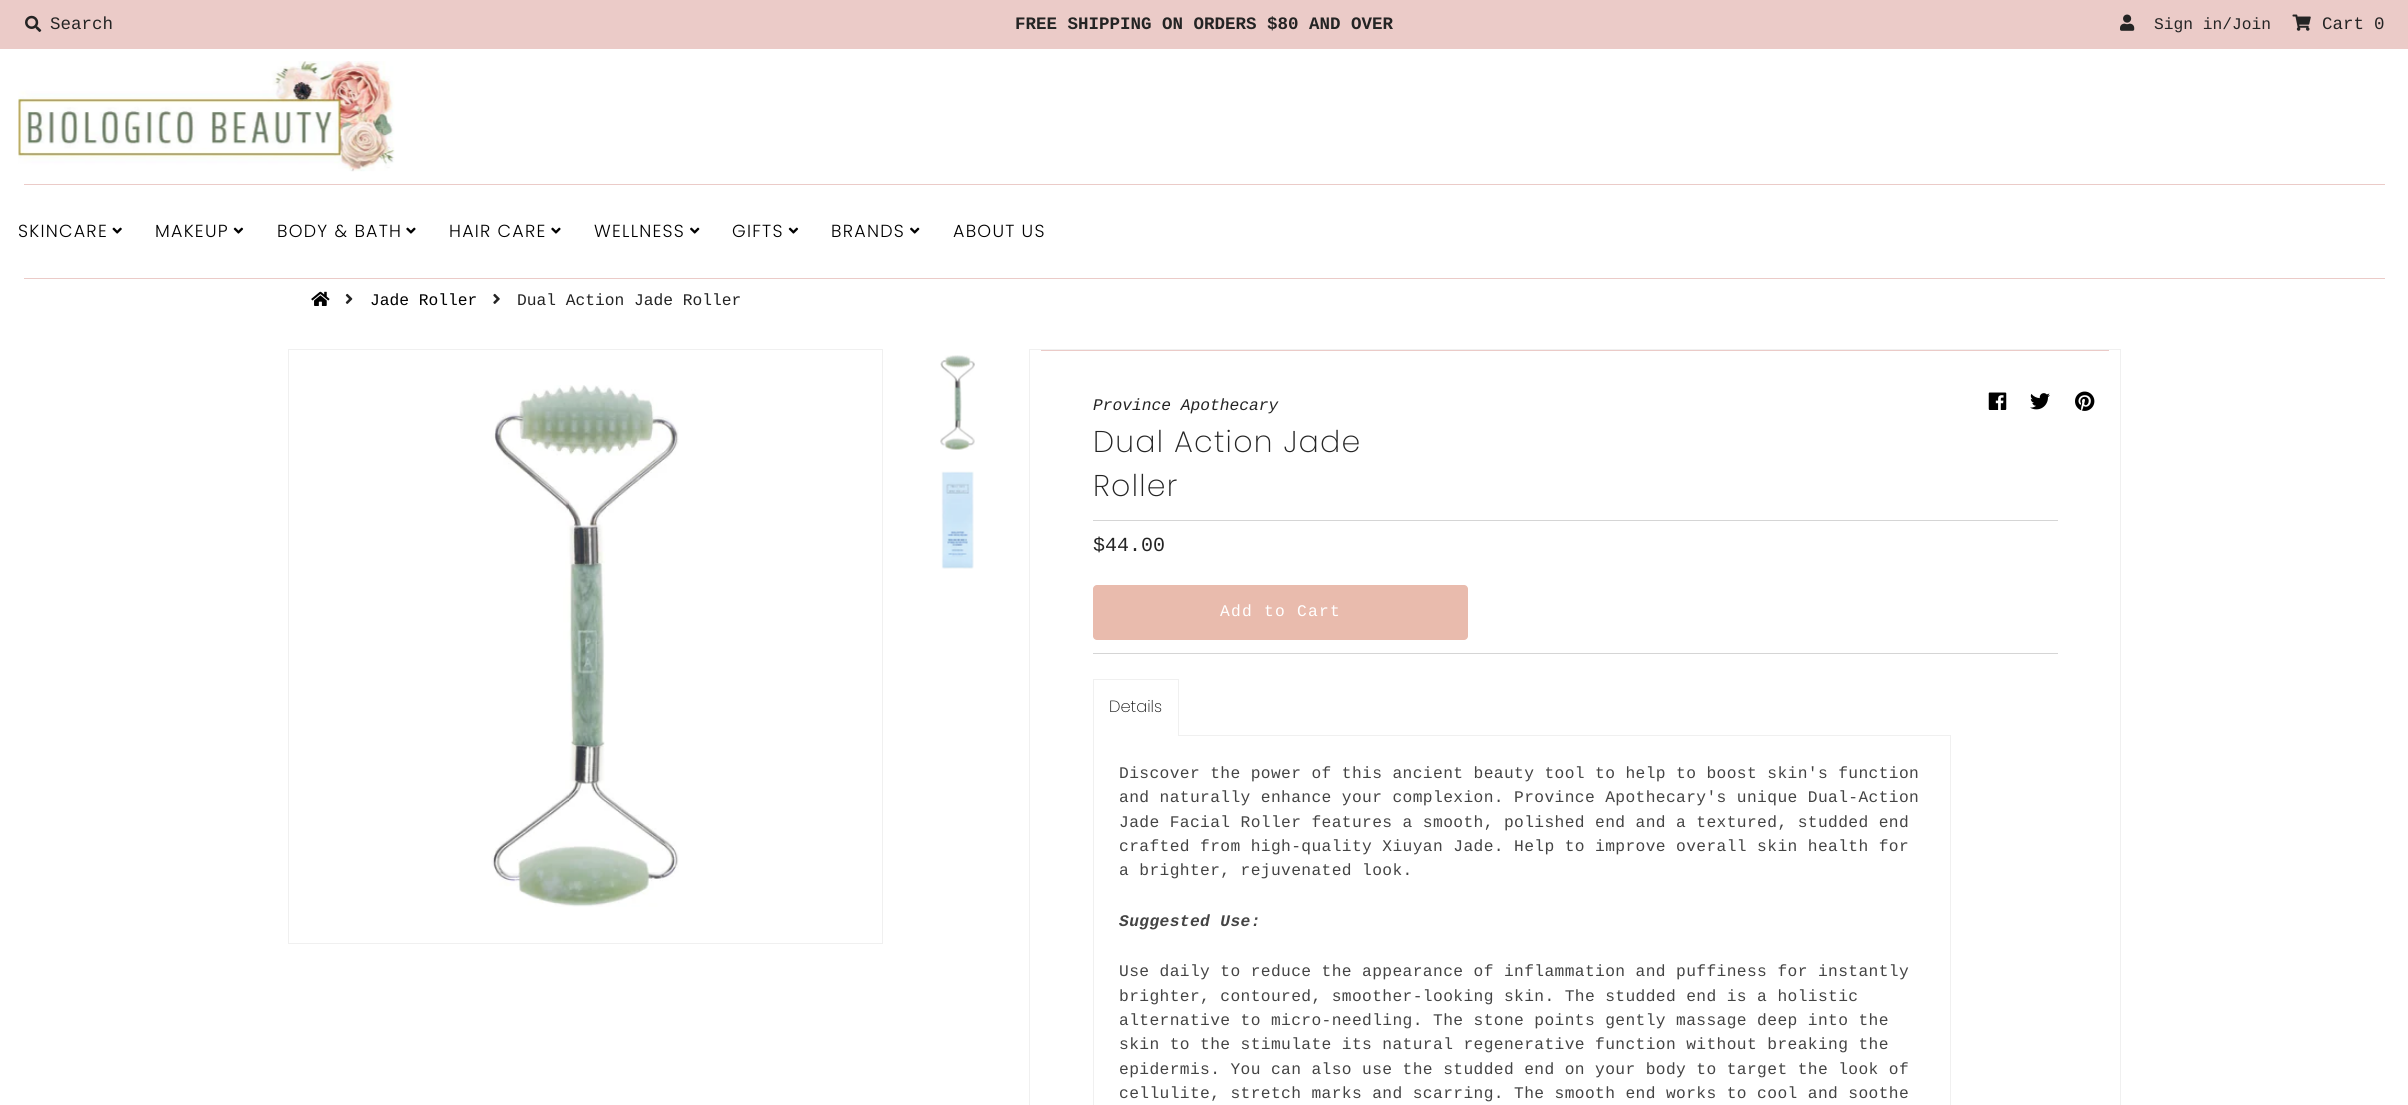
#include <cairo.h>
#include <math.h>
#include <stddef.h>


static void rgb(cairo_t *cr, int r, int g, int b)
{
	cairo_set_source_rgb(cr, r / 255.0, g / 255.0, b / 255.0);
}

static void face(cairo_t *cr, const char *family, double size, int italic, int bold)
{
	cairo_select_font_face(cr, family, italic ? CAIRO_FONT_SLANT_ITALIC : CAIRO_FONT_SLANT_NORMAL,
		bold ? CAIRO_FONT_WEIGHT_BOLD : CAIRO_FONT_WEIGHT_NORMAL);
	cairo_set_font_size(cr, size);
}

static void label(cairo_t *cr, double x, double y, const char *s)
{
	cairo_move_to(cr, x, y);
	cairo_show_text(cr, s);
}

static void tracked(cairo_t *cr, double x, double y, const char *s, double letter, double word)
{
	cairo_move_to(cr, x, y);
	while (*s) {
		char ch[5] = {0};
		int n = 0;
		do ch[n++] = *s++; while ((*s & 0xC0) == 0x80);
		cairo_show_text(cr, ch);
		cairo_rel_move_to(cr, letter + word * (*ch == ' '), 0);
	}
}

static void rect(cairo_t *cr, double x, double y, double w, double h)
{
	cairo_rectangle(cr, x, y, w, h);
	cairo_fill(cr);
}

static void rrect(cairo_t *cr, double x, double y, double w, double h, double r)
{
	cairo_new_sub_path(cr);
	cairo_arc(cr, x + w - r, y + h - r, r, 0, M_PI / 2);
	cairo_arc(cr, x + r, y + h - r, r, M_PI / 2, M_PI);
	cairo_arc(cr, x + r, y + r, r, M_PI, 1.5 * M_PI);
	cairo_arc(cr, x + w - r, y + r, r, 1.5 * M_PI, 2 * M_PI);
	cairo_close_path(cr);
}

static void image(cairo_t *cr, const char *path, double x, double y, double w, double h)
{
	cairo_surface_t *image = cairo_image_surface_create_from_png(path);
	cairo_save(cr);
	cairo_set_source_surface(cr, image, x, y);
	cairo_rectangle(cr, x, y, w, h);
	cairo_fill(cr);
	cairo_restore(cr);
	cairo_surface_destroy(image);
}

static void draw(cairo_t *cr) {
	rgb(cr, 255, 255, 255);
	cairo_paint(cr);
	rgb(cr, 235, 203, 200);
	rect(cr, 0, 0, 2408, 49);
	image(cr, "image0.png", 25, 15, 17, 17);
	face(cr, "Liberation Mono", 17.5, 0, 0);
	rgb(cr, 36, 36, 36);
	label(cr, 50, 29, "Search");
	face(cr, "Liberation Mono", 17.5, 0, 1);
	label(cr, 1015, 29, "FREE SHIPPING ON ORDERS $80 AND OVER");
	image(cr, "image1.png", 2120, 14, 15, 17);
	face(cr, "Liberation Mono", 16.25, 0, 0);
	label(cr, 2154, 29, "Sign in/Join");
	image(cr, "image2.png", 2292, 14, 19, 17);
	face(cr, "Liberation Mono", 17.5, 0, 0);
	label(cr, 2322, 29, "Cart");
	label(cr, 2374, 29, "0");
	image(cr, "image3.png", 18, 61, 377, 111);
	rgb(cr, 235, 203, 200);
	rect(cr, 24, 184, 2361, 1);
	face(cr, "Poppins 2 Light", 17.5, 0, 0);
	rgb(cr, 0, 0, 0);
	tracked(cr, 18, 237, "SKINCARE", 1.25, 0);
	image(cr, "image4.png", 112, 227, 10, 7);
	tracked(cr, 155, 237, "MAKEUP", 1.25, 0);
	image(cr, "image5.png", 233, 227, 11, 7);
	tracked(cr, 277, 237, "BODY & BATH", 1.25, 0);
	image(cr, "image6.png", 406, 227, 10, 7);
	tracked(cr, 449, 237, "HAIR CARE", 1.25, 0);
	image(cr, "image6.png", 551, 227, 10, 7);
	tracked(cr, 594, 237, "WELLNESS", 1.25, 0);
	image(cr, "image7.png", 690, 227, 10, 7);
	tracked(cr, 732, 237, "GIFTS", 1.25, 0);
	image(cr, "image5.png", 788, 227, 11, 7);
	tracked(cr, 831, 237, "BRANDS", 1.25, 0);
	image(cr, "image7.png", 910, 227, 10, 7);
	tracked(cr, 953, 237, "ABOUT US", 1.25, 0);
	rgb(cr, 235, 203, 200);
	rect(cr, 24, 278, 2361, 1);
	image(cr, "image8.png", 311, 291, 19, 15);
	image(cr, "image9.png", 345, 293, 8, 11);
	face(cr, "Liberation Mono", 16.25, 0, 0);
	rgb(cr, 0, 0, 0);
	label(cr, 370, 305, "Jade Roller");
	image(cr, "image10.png", 493, 293, 7, 11);
	rgb(cr, 36, 36, 36);
	label(cr, 517, 305, "Dual Action Jade Roller");
	cairo_rectangle(cr, 288.5, 349.5, 594, 594);
	rgb(cr, 240, 240, 240);
	cairo_set_line_width(cr, 1);
	cairo_stroke(cr);
	image(cr, "image11.png", 491, 385, 188, 522);
	image(cr, "image12.png", 940, 355, 35, 95);
	image(cr, "image13.png", 941, 471, 33, 98);
	cairo_rectangle(cr, 1029.5, 349.5, 1091, 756);
	cairo_stroke(cr);
	face(cr, "Liberation Mono", 16.25, 1, 0);
	rgb(cr, 36, 36, 36);
	label(cr, 1093, 410, "Province Apothecary");
	image(cr, "image14.png", 1988, 392, 19, 18);
	image(cr, "image15.png", 2030, 393, 20, 17);
	image(cr, "image16.png", 2075, 391, 20, 20);
	face(cr, "Poppins Light", 30, 0, 0);
	tracked(cr, 1093, 452, "Dual Action Jade", 1.25, 0);
	tracked(cr, 1093, 496, "Roller", 1.25, 0);
	rgb(cr, 213, 213, 213);
	rect(cr, 1093, 520, 965, 1);
	rect(cr, 1093, 653, 965, 1);
	face(cr, "Liberation Mono", 20, 0, 0);
	rgb(cr, 36, 36, 36);
	label(cr, 1093, 551, "$44.00");
	rgb(cr, 233, 187, 173);
	rrect(cr, 1093, 585, 375, 55, 4);
	cairo_fill(cr);
	face(cr, "Liberation Mono", 16.25, 0, 0);
	rgb(cr, 255, 255, 255);
	tracked(cr, 1220, 616, "Add to Cart", 1.25, 0);
	rgb(cr, 235, 203, 200);
	rect(cr, 1041, 350, 1068, 1);
	rgb(cr, 240, 240, 240);
	rect(cr, 1093, 679, 86, 1);
	rect(cr, 1178, 679, 1, 56);
	rect(cr, 1093, 679, 1, 56);
	face(cr, "Poppins Light", 16.25, 0, 0);
	rgb(cr, 17, 17, 17);
	label(cr, 1109, 712, "Details");
	cairo_rectangle(cr, 1093.5, 735.5, 857, 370);
	rgb(cr, 240, 240, 240);
	cairo_stroke(cr);
	rgb(cr, 255, 255, 255);
	rect(cr, 1094, 735, 84, 1);
	face(cr, "Liberation Mono", 16.25, 0, 0);
	rgb(cr, 68, 68, 68);
	tracked(cr, 1119, 778, "Discover the power of this ancient beauty tool to help to boost skin's function", 0.38, 0);
	tracked(cr, 1119, 802, "and naturally enhance your complexion. Province Apothecary's unique Dual-Action", 0.38, 0);
	tracked(cr, 1119, 827, "Jade Facial Roller features a smooth, polished end and a textured, studded end", 0.38, 0);
	tracked(cr, 1119, 851, "crafted from high-quality Xiuyan Jade. Help to improve overall skin health for", 0.38, 0);
	tracked(cr, 1119, 875, "a brighter, rejuvenated look.", 0.38, 0);
	face(cr, "Liberation Mono", 16.25, 1, 1);
	tracked(cr, 1119, 926, "Suggested Use:", 0.38, 0);
	face(cr, "Liberation Mono", 16.25, 0, 0);
	tracked(cr, 1119, 976, "Use daily to reduce the appearance of inflammation and puffiness for instantly", 0.38, 0);
	tracked(cr, 1119, 1001, "brighter, contoured, smoother-looking skin. The studded end is a holistic", 0.38, 0);
	tracked(cr, 1119, 1025, "alternative to micro-needling. The stone points gently massage deep into the", 0.38, 0);
	tracked(cr, 1119, 1049, "skin to the stimulate its natural regenerative function without breaking the", 0.38, 0);
	tracked(cr, 1119, 1074, "epidermis. You can also use the studded end on your body to target the look of", 0.38, 0);
	tracked(cr, 1119, 1098, "cellulite, stretch marks and scarring. The smooth end works to cool and soothe", 0.38, 0);
}

int main(void) {
	cairo_surface_t *surface = cairo_image_surface_create(CAIRO_FORMAT_RGB24, 2408, 1105);
	cairo_t *cr = cairo_create(surface);
	cairo_font_options_t *options = cairo_font_options_create();
	cairo_font_options_set_hint_metrics(options, CAIRO_HINT_METRICS_OFF);
	cairo_font_options_set_hint_style(options, CAIRO_HINT_STYLE_NONE);
	cairo_set_font_options(cr, options);
	cairo_set_miter_limit(cr, 4);
	draw(cr);
	cairo_surface_write_to_png(surface, "render.png");
	cairo_font_options_destroy(options);
	cairo_destroy(cr);
	cairo_surface_destroy(surface);
	return 0;
}
